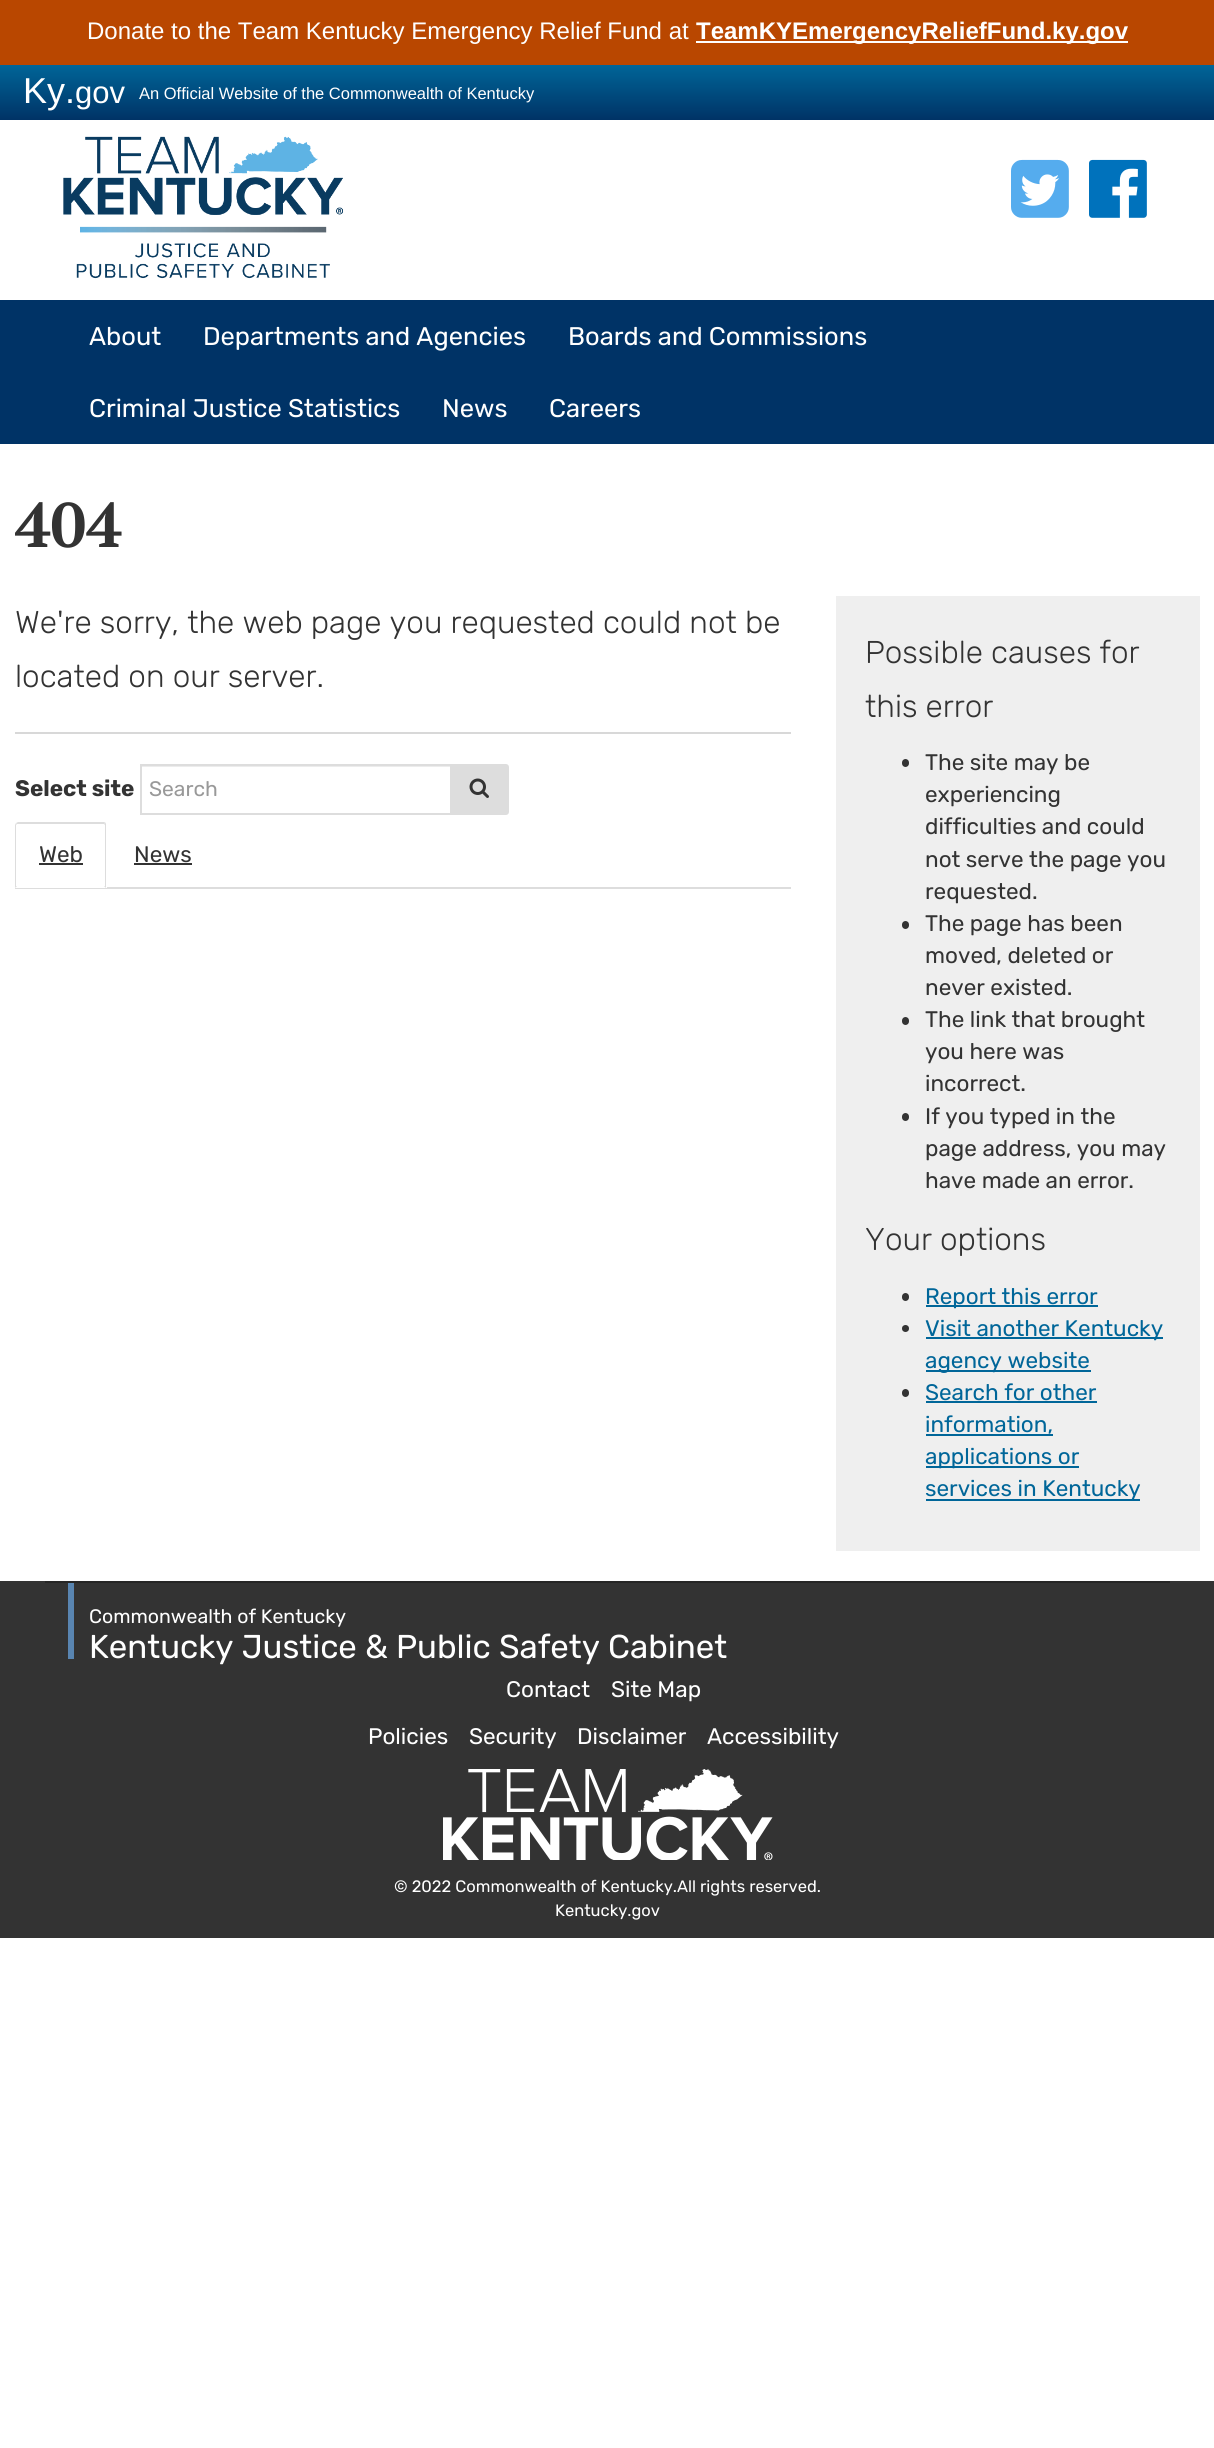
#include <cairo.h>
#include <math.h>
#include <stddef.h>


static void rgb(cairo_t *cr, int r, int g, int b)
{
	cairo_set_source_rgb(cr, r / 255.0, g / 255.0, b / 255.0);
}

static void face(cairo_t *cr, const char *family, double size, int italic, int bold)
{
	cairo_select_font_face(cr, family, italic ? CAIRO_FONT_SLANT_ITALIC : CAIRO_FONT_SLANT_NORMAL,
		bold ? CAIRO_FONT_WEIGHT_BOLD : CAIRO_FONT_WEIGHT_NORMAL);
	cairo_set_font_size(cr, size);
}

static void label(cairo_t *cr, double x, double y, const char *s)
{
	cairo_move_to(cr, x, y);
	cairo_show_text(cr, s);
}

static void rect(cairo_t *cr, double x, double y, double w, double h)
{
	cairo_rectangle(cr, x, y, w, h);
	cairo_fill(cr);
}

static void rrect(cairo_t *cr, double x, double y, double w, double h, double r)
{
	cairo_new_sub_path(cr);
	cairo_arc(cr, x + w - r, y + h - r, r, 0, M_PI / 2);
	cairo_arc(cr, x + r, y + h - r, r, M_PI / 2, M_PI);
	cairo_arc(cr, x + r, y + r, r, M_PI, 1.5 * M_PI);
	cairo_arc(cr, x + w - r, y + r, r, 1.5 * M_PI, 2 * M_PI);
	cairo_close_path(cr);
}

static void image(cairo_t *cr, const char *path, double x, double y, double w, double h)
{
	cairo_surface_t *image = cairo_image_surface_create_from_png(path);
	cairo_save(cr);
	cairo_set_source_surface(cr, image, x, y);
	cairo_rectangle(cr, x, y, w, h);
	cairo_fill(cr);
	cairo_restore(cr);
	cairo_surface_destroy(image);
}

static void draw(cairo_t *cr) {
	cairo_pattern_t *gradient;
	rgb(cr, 255, 255, 255);
	cairo_paint(cr);
	rgb(cr, 185, 71, 0);
	rect(cr, 0, 0, 1214, 65);
	face(cr, "Liberation Sans", 24, 0, 0);
	rgb(cr, 255, 255, 255);
	label(cr, 87, 39, "Donate to the Team Kentucky Emergency Relief Fund at");
	rect(cr, 696, 41, 432, 2);
	face(cr, "Liberation Sans", 24, 0, 1);
	label(cr, 696, 39, "TeamKYEmergencyReliefFund.ky.gov");
	gradient = cairo_pattern_create_linear(608, 64, 608, 120);
	cairo_pattern_add_color_stop_rgba(gradient, 0, 0, 0.4, 0.6, 1);
	cairo_pattern_add_color_stop_rgba(gradient, 1, 0, 0.2, 0.4, 1);
	cairo_set_source(cr, gradient);
	cairo_pattern_destroy(gradient);
	rect(cr, 0, 65, 1214, 55);
	face(cr, "Liberation Sans", 36, 0, 0);
	rgb(cr, 255, 255, 255);
	label(cr, 23, 103, "Ky.");
	face(cr, "Liberation Sans", 31, 0, 0);
	label(cr, 75, 103, "gov");
	face(cr, "Liberation Sans", 16.5, 0, 0);
	label(cr, 139, 99, "An Official Website of the Commonwealth of Kentucky");
	image(cr, "image0.png", 63, 136, 280, 143);
	image(cr, "image1.png", 1011, 159, 58, 59);
	image(cr, "image2.png", 1089, 159, 58, 59);
	rgb(cr, 0, 51, 102);
	rect(cr, 0, 300, 1214, 144);
	face(cr, "Rubik", 25.5, 0, 0);
	rgb(cr, 255, 255, 255);
	label(cr, 89, 345, "About");
	label(cr, 203, 345, "Departments and Agencies");
	label(cr, 568, 345, "Boards and Commissions");
	label(cr, 89, 417, "Criminal Justice Statistics");
	label(cr, 442, 417, "News");
	label(cr, 549, 417, "Careers");
	face(cr, "PT Serif", 63, 0, 1);
	rgb(cr, 51, 51, 51);
	label(cr, 15, 547, "404");
	face(cr, "Rubik Light", 31.5, 0, 0);
	label(cr, 15, 633, "We're sorry, the web page you requested could not be");
	label(cr, 15, 687, "located on our server.");
	rgb(cr, 216, 216, 216);
	rect(cr, 15, 732, 776, 2);
	face(cr, "Rubik", 22.5, 0, 1);
	rgb(cr, 51, 51, 51);
	label(cr, 15, 796, "Select site");
	rgb(cr, 236, 236, 236);
	rect(cr, 141, 766, 309, 1);
	cairo_rectangle(cr, 141, 765, 310, 49);
	rgb(cr, 221, 221, 221);
	cairo_stroke(cr);
	face(cr, "Rubik", 21, 0, 0);
	rgb(cr, 153, 153, 153);
	label(cr, 149, 796, "Search");
	rgb(cr, 221, 221, 221);
	cairo_new_path(cr);
	cairo_move_to(cr, 451, 765);
	cairo_line_to(cr, 506, 765);
	cairo_curve_to(cr, 507, 765, 508, 766, 508, 767);
	cairo_line_to(cr, 508, 812);
	cairo_curve_to(cr, 508, 813, 507, 814, 506, 814);
	cairo_line_to(cr, 451, 814);
	cairo_close_path(cr);
	cairo_fill_preserve(cr);
	cairo_stroke(cr);
	image(cr, "image3.png", 469, 778, 20, 20);
	rect(cr, 15, 887, 776, 2);
	rgb(cr, 255, 255, 255);
	cairo_new_path(cr);
	cairo_move_to(cr, 18, 822);
	cairo_line_to(cr, 104, 822);
	cairo_curve_to(cr, 105.5, 822, 107, 823.5, 107, 825);
	cairo_line_to(cr, 107, 888);
	cairo_line_to(cr, 15, 888);
	cairo_line_to(cr, 15, 825);
	cairo_curve_to(cr, 15, 823.5, 16.5, 822, 18, 822);
	cairo_close_path(cr);
	cairo_fill(cr);
	rgb(cr, 221, 221, 221);
	cairo_new_path(cr);
	cairo_move_to(cr, 18, 822);
	cairo_line_to(cr, 16, 823);
	cairo_line_to(cr, 17, 824);
	cairo_line_to(cr, 104, 824);
	cairo_line_to(cr, 106, 823);
	cairo_line_to(cr, 104, 822);
	cairo_close_path(cr);
	cairo_fill(cr);
	cairo_new_path(cr);
	cairo_move_to(cr, 106, 823);
	cairo_line_to(cr, 106, 825);
	cairo_line_to(cr, 106, 888);
	cairo_line_to(cr, 104, 886);
	cairo_line_to(cr, 105, 886);
	cairo_line_to(cr, 105, 825);
	cairo_line_to(cr, 104, 824);
	cairo_close_path(cr);
	cairo_fill(cr);
	cairo_new_path(cr);
	cairo_move_to(cr, 15, 888);
	cairo_line_to(cr, 17, 886);
	cairo_line_to(cr, 16, 886);
	cairo_line_to(cr, 16, 825);
	cairo_line_to(cr, 17, 824);
	cairo_line_to(cr, 16, 823);
	cairo_line_to(cr, 15, 825);
	cairo_close_path(cr);
	cairo_fill(cr);
	face(cr, "Rubik", 22.5, 0, 0);
	rgb(cr, 51, 51, 51);
	label(cr, 39, 862, "Web");
	rect(cr, 39, 863, 44, 2);
	label(cr, 134, 862, "News");
	rect(cr, 134, 863, 58, 2);
	rgb(cr, 239, 239, 239);
	rect(cr, 836, 596, 364, 955);
	face(cr, "Rubik Light", 31.5, 0, 0);
	rgb(cr, 51, 51, 51);
	label(cr, 865, 663, "Possible causes for");
	label(cr, 865, 717, "this error");
	rrect(cr, 902, 759, 7, 8, 3.5);
	cairo_fill(cr);
	face(cr, "Rubik", 22.5, 0, 0);
	label(cr, 925, 770, "The site may be");
	label(cr, 925, 802, "experiencing");
	label(cr, 925, 834, "difficulties and could");
	label(cr, 925, 867, "not serve the page you");
	label(cr, 925, 899, "requested.");
	rrect(cr, 902, 921, 7, 8, 3.5);
	cairo_fill(cr);
	label(cr, 925, 931, "The page has been");
	label(cr, 925, 963, "moved, deleted or");
	label(cr, 925, 995, "never existed.");
	rrect(cr, 902, 1017, 7, 8, 3.5);
	cairo_fill(cr);
	label(cr, 925, 1027, "The link that brought");
	label(cr, 925, 1059, "you here was");
	label(cr, 925, 1091, "incorrect.");
	rrect(cr, 902, 1113, 7, 8, 3.5);
	cairo_fill(cr);
	label(cr, 925, 1124, "If you typed in the");
	label(cr, 925, 1156, "page address, you may");
	label(cr, 925, 1188, "have made an error.");
	face(cr, "Rubik Light", 31.5, 0, 0);
	label(cr, 865, 1250, "Your options");
	rrect(cr, 902, 1293, 7, 8, 3.5);
	cairo_fill(cr);
	rgb(cr, 0, 102, 153);
	rect(cr, 926, 1305, 172, 2);
	face(cr, "Rubik", 22.5, 0, 0);
	label(cr, 925, 1304, "Report this error");
	rgb(cr, 51, 51, 51);
	cairo_new_path(cr);
	cairo_arc(cr, 905.5, 1328.5, 3.5, 0, 2 * M_PI);
	cairo_fill(cr);
	rgb(cr, 0, 102, 153);
	rect(cr, 926, 1337, 237, 2);
	label(cr, 925, 1336, "Visit another Kentucky");
	rect(cr, 926, 1370, 165, 2);
	label(cr, 925, 1368, "agency website");
	rgb(cr, 51, 51, 51);
	rrect(cr, 902, 1389, 7, 8, 3.5);
	cairo_fill(cr);
	rgb(cr, 0, 102, 153);
	label(cr, 925, 1400, "Search for other");
	rect(cr, 926, 1401, 171, 2);
	label(cr, 925, 1432, "information,");
	rect(cr, 926, 1434, 127, 2);
	rect(cr, 926, 1466, 153, 2);
	label(cr, 925, 1464, "applications or");
	rect(cr, 926, 1499, 214, 2);
	label(cr, 925, 1496, "services in Kentucky");
	rgb(cr, 51, 51, 51);
	rect(cr, 0, 1581, 1214, 357);
	rgb(cr, 38, 38, 38);
	rect(cr, 45, 1581, 1125, 2);
	rgb(cr, 89, 133, 177);
	rect(cr, 68, 1583, 6, 76);
	face(cr, "Rubik", 19.5, 0, 0);
	rgb(cr, 255, 255, 255);
	label(cr, 89, 1623, "Commonwealth of Kentucky");
	face(cr, "Rubik", 33, 0, 0);
	label(cr, 89, 1658, "Kentucky Justice & Public Safety Cabinet");
	face(cr, "Rubik", 22.5, 0, 0);
	label(cr, 506, 1697, "Contact");
	label(cr, 611, 1697, "Site Map");
	label(cr, 368, 1744, "Policies");
	label(cr, 469, 1744, "Security");
	label(cr, 577, 1744, "Disclaimer");
	label(cr, 707, 1744, "Accessibility");
	image(cr, "image4.png", 443, 1769, 330, 91);
	face(cr, "Rubik", 16.5, 0, 0);
	label(cr, 394, 1892, "© 2022 Commonwealth of Kentucky.All rights reserved.");
	label(cr, 555, 1916, "Kentucky.gov");
}

int main(void) {
	cairo_surface_t *surface = cairo_image_surface_create(CAIRO_FORMAT_RGB24, 1214, 2448);
	cairo_t *cr = cairo_create(surface);
	cairo_font_options_t *options = cairo_font_options_create();
	cairo_font_options_set_hint_metrics(options, CAIRO_HINT_METRICS_OFF);
	cairo_font_options_set_hint_style(options, CAIRO_HINT_STYLE_NONE);
	cairo_set_font_options(cr, options);
	cairo_set_miter_limit(cr, 4);
	draw(cr);
	cairo_surface_write_to_png(surface, "render.png");
	cairo_font_options_destroy(options);
	cairo_destroy(cr);
	cairo_surface_destroy(surface);
	return 0;
}
